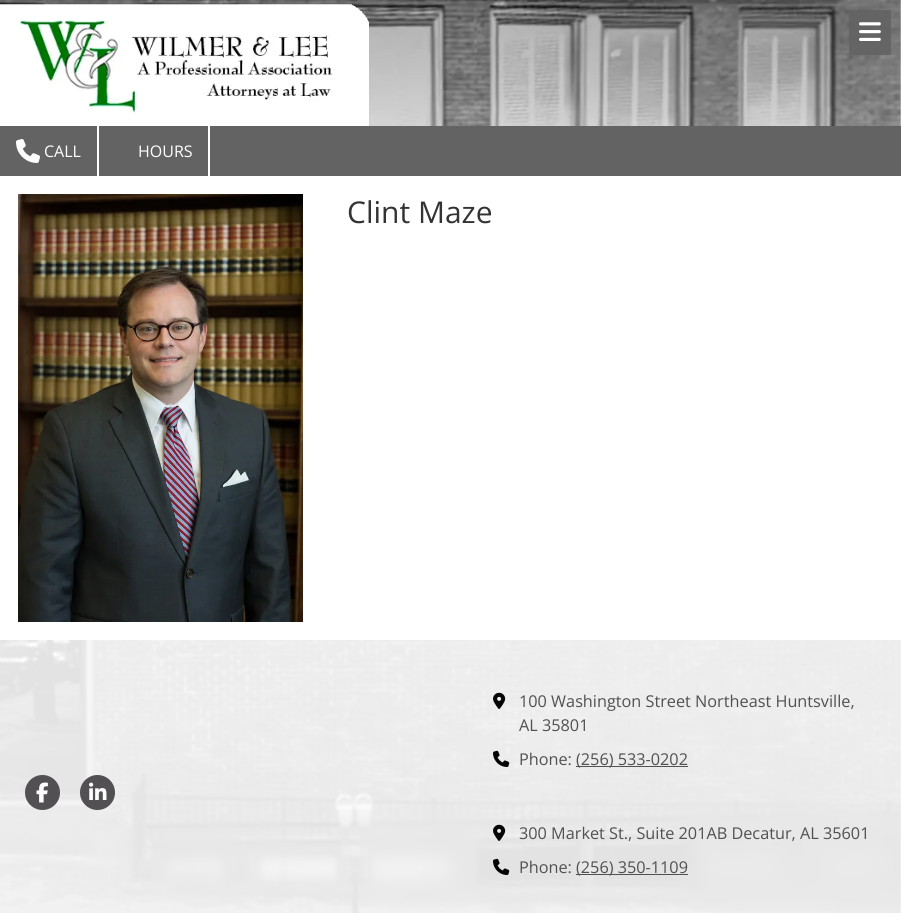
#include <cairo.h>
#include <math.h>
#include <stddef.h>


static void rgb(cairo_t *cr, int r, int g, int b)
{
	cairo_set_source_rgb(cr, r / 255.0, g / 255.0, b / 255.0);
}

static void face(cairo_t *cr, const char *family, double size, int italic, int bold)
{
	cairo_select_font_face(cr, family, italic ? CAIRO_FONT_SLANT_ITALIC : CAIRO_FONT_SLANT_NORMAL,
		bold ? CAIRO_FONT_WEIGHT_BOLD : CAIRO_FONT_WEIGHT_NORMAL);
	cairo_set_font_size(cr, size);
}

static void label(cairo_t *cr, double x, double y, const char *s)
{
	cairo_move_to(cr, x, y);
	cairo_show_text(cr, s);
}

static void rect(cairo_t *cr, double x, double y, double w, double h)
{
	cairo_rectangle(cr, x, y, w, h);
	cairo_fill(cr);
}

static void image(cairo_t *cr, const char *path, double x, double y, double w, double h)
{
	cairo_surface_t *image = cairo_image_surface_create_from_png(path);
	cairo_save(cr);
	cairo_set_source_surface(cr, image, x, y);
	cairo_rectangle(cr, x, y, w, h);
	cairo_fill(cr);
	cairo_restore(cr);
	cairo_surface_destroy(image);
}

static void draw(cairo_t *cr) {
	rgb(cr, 255, 255, 255);
	cairo_paint(cr);
	image(cr, "image0.png", 0, 0, 901, 913);
	image(cr, "image1.png", 0, 4, 369, 122);
	cairo_set_source_rgba(cr, 0.388, 0.388, 0.388, 0.9);
	rect(cr, 849, 10, 42, 45);
	image(cr, "image2.png", 859, 22, 22, 19);
	rgb(cr, 99, 99, 99);
	rect(cr, 0, 126, 901, 50);
	rgb(cr, 255, 255, 255);
	rect(cr, 97, 126, 2, 50);
	image(cr, "image3.png", 16, 139, 24, 24);
	face(cr, "Open Sans", 16, 0, 0);
	label(cr, 44, 157, "CALL");
	rect(cr, 208, 126, 2, 50);
	label(cr, 138, 157, "HOURS");
	rect(cr, 0, 176, 901, 464);
	image(cr, "image4.png", 18, 194, 285, 428);
	face(cr, "Open Sans", 30, 0, 0);
	rgb(cr, 51, 51, 51);
	label(cr, 347, 223, "Clint Maze");
	cairo_set_source_rgba(cr, 1, 1, 1, 0.89);
	rect(cr, 0, 640, 901, 273);
	rgb(cr, 82, 80, 82);
	cairo_new_path(cr);
	cairo_arc(cr, 42.5, 792.5, 17.5, 0, 2 * M_PI);
	cairo_fill(cr);
	image(cr, "image5.png", 36, 782, 12, 21);
	cairo_arc(cr, 97.5, 792.5, 17.5, 0, 2 * M_PI);
	cairo_fill(cr);
	image(cr, "image6.png", 89, 782, 18, 18);
	image(cr, "image7.png", 493, 692, 13, 17);
	face(cr, "Open Sans", 16.25, 0, 0);
	label(cr, 519, 707, "100 Washington Street Northeast Huntsville,");
	label(cr, 519, 731, "AL 35801");
	image(cr, "image8.png", 493, 750, 17, 17);
	label(cr, 519, 765, "Phone:");
	rect(cr, 576, 766, 112, 1);
	label(cr, 576, 765, "(256) 533-0202");
	image(cr, "image9.png", 493, 824, 13, 17);
	label(cr, 519, 839, "300 Market St., Suite 201AB Decatur, AL 35601");
	image(cr, "image10.png", 493, 858, 17, 17);
	label(cr, 519, 873, "Phone:");
	rect(cr, 576, 874, 112, 1);
	label(cr, 576, 873, "(256) 350-1109");
}

int main(void) {
	cairo_surface_t *surface = cairo_image_surface_create(CAIRO_FORMAT_RGB24, 901, 913);
	cairo_t *cr = cairo_create(surface);
	cairo_font_options_t *options = cairo_font_options_create();
	cairo_font_options_set_hint_metrics(options, CAIRO_HINT_METRICS_OFF);
	cairo_font_options_set_hint_style(options, CAIRO_HINT_STYLE_NONE);
	cairo_set_font_options(cr, options);
	cairo_set_miter_limit(cr, 4);
	draw(cr);
	cairo_surface_write_to_png(surface, "render.png");
	cairo_font_options_destroy(options);
	cairo_destroy(cr);
	cairo_surface_destroy(surface);
	return 0;
}
